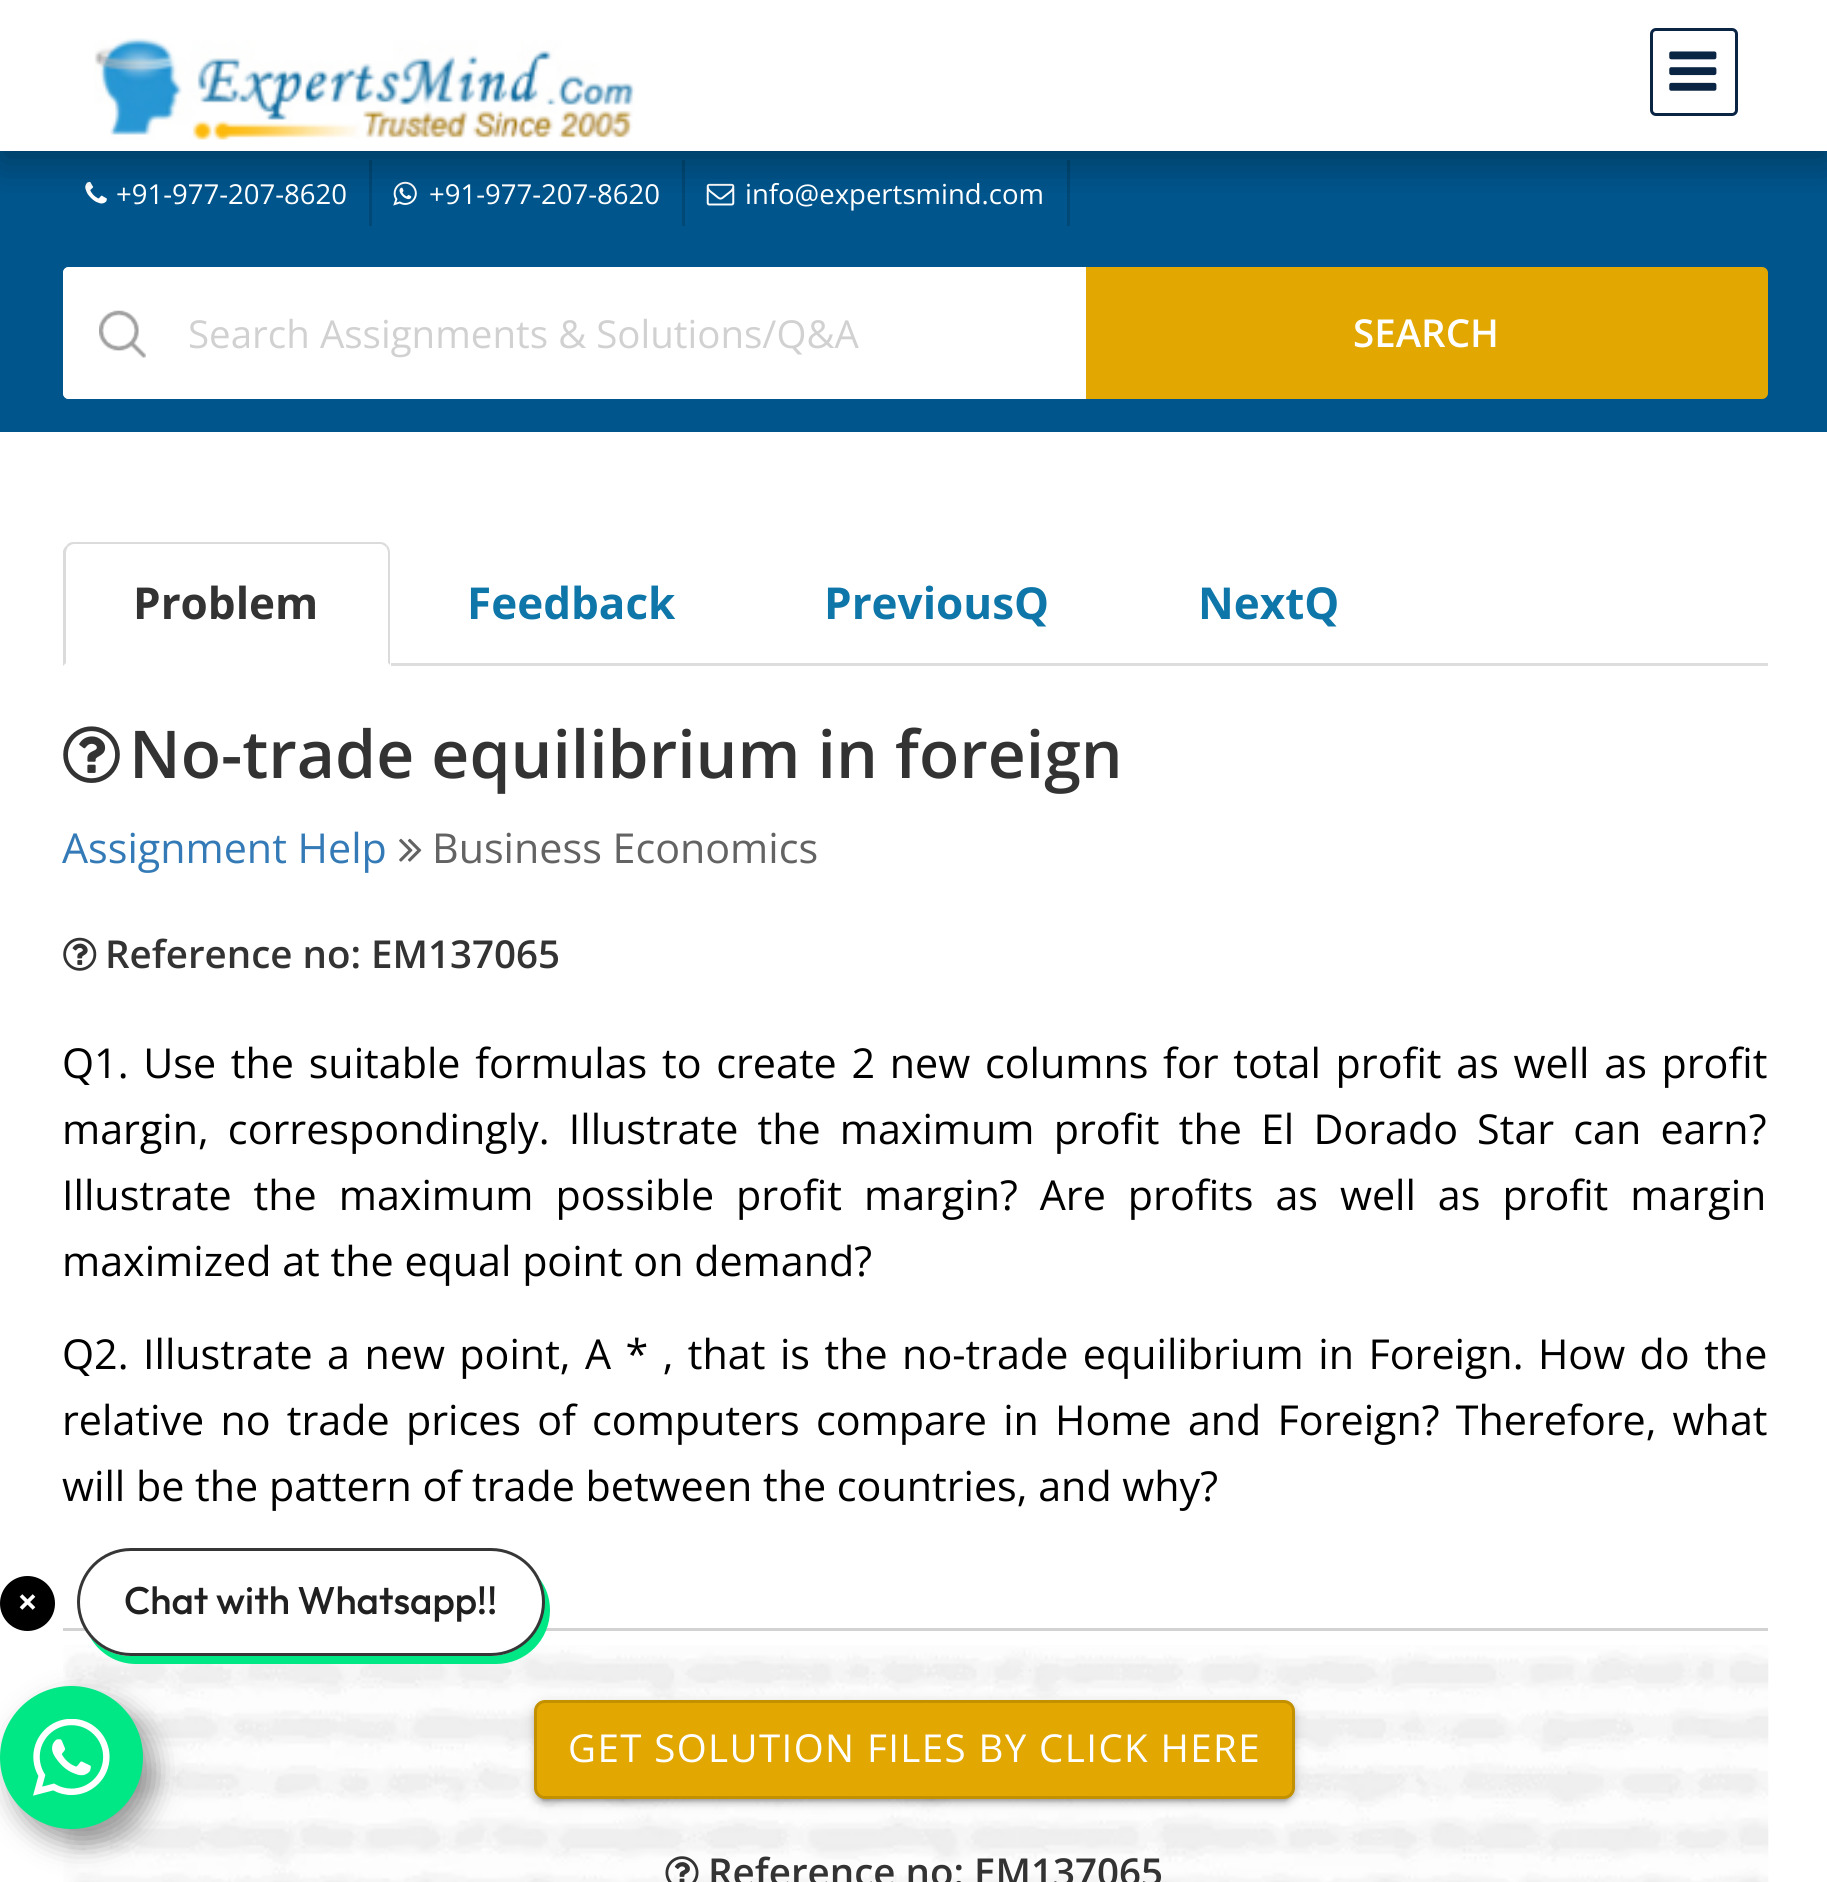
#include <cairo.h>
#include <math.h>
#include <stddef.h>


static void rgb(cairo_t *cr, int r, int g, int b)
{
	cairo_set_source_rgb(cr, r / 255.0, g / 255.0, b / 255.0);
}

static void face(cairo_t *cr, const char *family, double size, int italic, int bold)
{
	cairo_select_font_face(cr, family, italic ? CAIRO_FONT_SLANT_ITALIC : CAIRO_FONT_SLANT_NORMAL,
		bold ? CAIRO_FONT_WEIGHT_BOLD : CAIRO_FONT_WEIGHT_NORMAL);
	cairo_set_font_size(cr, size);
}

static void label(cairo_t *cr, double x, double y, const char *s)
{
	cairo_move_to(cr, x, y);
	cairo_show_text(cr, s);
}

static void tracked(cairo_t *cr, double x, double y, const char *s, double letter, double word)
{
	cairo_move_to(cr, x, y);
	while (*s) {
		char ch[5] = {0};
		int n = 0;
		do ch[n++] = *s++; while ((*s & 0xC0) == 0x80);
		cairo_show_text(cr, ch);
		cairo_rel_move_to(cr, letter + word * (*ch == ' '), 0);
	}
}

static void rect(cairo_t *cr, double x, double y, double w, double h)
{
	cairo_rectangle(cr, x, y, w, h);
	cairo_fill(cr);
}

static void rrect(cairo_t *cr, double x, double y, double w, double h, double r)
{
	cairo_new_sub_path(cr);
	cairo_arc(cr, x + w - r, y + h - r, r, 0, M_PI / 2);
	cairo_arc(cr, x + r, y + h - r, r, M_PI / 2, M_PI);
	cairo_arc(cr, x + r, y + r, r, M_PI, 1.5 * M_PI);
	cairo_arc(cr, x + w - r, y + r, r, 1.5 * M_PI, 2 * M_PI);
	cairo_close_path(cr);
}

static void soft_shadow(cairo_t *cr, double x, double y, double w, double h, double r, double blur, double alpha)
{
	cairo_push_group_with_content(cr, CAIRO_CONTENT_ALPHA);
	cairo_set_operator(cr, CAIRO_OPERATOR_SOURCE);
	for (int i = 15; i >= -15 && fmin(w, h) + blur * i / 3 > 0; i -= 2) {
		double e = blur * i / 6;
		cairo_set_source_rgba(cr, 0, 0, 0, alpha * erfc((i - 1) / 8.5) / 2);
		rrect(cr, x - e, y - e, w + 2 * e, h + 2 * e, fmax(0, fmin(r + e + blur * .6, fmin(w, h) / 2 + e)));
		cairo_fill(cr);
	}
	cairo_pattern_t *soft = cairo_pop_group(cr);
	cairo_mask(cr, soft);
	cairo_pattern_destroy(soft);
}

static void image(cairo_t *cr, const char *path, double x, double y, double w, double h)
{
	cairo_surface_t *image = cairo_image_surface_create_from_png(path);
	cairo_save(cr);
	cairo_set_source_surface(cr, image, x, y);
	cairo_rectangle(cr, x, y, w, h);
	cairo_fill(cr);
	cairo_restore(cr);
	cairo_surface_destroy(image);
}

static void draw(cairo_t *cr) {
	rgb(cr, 255, 255, 255);
	cairo_paint(cr);
	rgb(cr, 0, 85, 140);
	rect(cr, 0, 151, 1827, 281);
	rgb(cr, 0, 72, 117);
	rect(cr, 369, 160, 3, 66);
	image(cr, "image2.png", 85, 181, 22, 23);
	rect(cr, 682, 160, 3, 66);
	image(cr, "image3.png", 393, 181, 24, 25);
	rect(cr, 1067, 160, 3, 66);
	image(cr, "image4.png", 706, 183, 29, 23);
	cairo_save(cr);
	cairo_rectangle(cr, 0, 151, 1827, 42);
	cairo_clip(cr);
	rgb(cr, 0, 0, 0);
	soft_shadow(cr, 0, 11, 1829, 151, 0, 20.5, 0.32);
	cairo_restore(cr);
	image(cr, "image0.png", 94, 38, 541, 102);
	rrect(cr, 1651.5, 29.5, 85, 85, 4.5);
	rgb(cr, 10, 36, 68);
	cairo_set_line_width(cr, 3);
	cairo_stroke(cr);
	image(cr, "image1.png", 1669, 51, 48, 40);
	face(cr, "Open Sans", 27.5, 0, 0);
	rgb(cr, 255, 255, 255);
	label(cr, 116, 204, "+91-977-207-8620");
	label(cr, 429, 204, "+91-977-207-8620");
	label(cr, 745, 204, "info@expertsmind.com");
	cairo_new_path(cr);
	cairo_move_to(cr, 69, 267);
	cairo_line_to(cr, 1339, 267);
	cairo_line_to(cr, 1339, 399);
	cairo_line_to(cr, 69, 399);
	cairo_curve_to(cr, 65.5, 399, 63, 396.5, 63, 393);
	cairo_line_to(cr, 63, 273);
	cairo_curve_to(cr, 63, 269.5, 65.5, 267, 69, 267);
	cairo_close_path(cr);
	cairo_fill(cr);
	image(cr, "image5.png", 99, 310, 47, 48);
	cairo_new_path(cr);
	cairo_move_to(cr, 69, 268.5);
	cairo_line_to(cr, 1337.5, 268.5);
	cairo_line_to(cr, 1337.5, 397.5);
	cairo_line_to(cr, 69, 397.5);
	cairo_curve_to(cr, 66.5, 397.5, 64.5, 395.5, 64.5, 393);
	cairo_line_to(cr, 64.5, 273);
	cairo_curve_to(cr, 64.5, 270.5, 66.5, 268.5, 69, 268.5);
	cairo_close_path(cr);
	cairo_stroke(cr);
	face(cr, "Open Sans", 38.5, 0, 0);
	rgb(cr, 209, 209, 209);
	label(cr, 188, 348, "Search Assignments & Solutions/Q&A");
	rgb(cr, 226, 167, 0);
	cairo_new_path(cr);
	cairo_move_to(cr, 1087.5, 268.5);
	cairo_line_to(cr, 1762, 268.5);
	cairo_curve_to(cr, 1764.5, 268.5, 1766.5, 270.5, 1766.5, 273);
	cairo_line_to(cr, 1766.5, 393);
	cairo_curve_to(cr, 1766.5, 395.5, 1764.5, 397.5, 1762, 397.5);
	cairo_line_to(cr, 1087.5, 397.5);
	cairo_close_path(cr);
	cairo_fill_preserve(cr);
	cairo_stroke(cr);
	face(cr, "Open Sans SemiBold", 38.5, 0, 0);
	rgb(cr, 255, 255, 255);
	label(cr, 1353, 347, "SEARCH");
	rgb(cr, 221, 221, 221);
	rect(cr, 391, 663, 1377, 3);
	rgb(cr, 220, 219, 219);
	cairo_new_path(cr);
	cairo_move_to(cr, 74, 542);
	cairo_curve_to(cr, 71, 542, 68, 543, 67, 545);
	cairo_line_to(cr, 68, 547);
	cairo_curve_to(cr, 70, 545, 72, 544, 74, 544);
	cairo_line_to(cr, 380, 544);
	cairo_curve_to(cr, 382, 544, 384, 545, 386, 547);
	cairo_line_to(cr, 387, 545);
	cairo_curve_to(cr, 385, 543, 383, 542, 380, 542);
	cairo_close_path(cr);
	cairo_fill(cr);
	cairo_new_path(cr);
	cairo_move_to(cr, 390, 665);
	cairo_line_to(cr, 390, 553);
	cairo_curve_to(cr, 390, 550, 389, 547, 387, 545);
	cairo_line_to(cr, 386, 547);
	cairo_curve_to(cr, 387, 548, 388, 551, 388, 553);
	cairo_line_to(cr, 388, 663);
	cairo_close_path(cr);
	cairo_fill(cr);
	cairo_new_path(cr);
	cairo_move_to(cr, 63, 666);
	cairo_line_to(cr, 66, 663);
	cairo_line_to(cr, 66, 553);
	cairo_curve_to(cr, 66, 551, 67, 548, 68, 547);
	cairo_line_to(cr, 67, 545);
	cairo_curve_to(cr, 65, 547, 64, 548, 63, 551);
	cairo_close_path(cr);
	cairo_fill(cr);
	face(cr, "Open Sans", 44, 0, 1);
	rgb(cr, 51, 51, 51);
	label(cr, 133, 619, "Problem");
	rgb(cr, 14, 118, 168);
	label(cr, 467, 619, "Feedback");
	label(cr, 824, 619, "PreviousQ");
	label(cr, 1198, 619, "NextQ");
	image(cr, "image6.png", 63, 726, 57, 57);
	face(cr, "Open Sans SemiBold", 66, 0, 0);
	rgb(cr, 51, 51, 51);
	label(cr, 129, 778, "No-trade equilibrium in foreign");
	face(cr, "Open Sans", 41.25, 0, 0);
	rgb(cr, 51, 122, 183);
	label(cr, 62, 863, "Assignment Help");
	image(cr, "image7.png", 399, 838, 23, 24);
	rgb(cr, 99, 99, 99);
	label(cr, 432, 863, "Business Economics");
	image(cr, "image8.png", 63, 937, 34, 34);
	face(cr, "Open Sans SemiBold", 38.5, 0, 0);
	rgb(cr, 51, 51, 51);
	label(cr, 105, 968, "Reference no: EM137065");
	face(cr, "Open Sans", 41.25, 0, 0);
	rgb(cr, 0, 0, 0);
	tracked(cr, 62, 1078, "Q1. Use the suitable formulas to create 2 new columns for total profit as well as profit", 0, 4);
	tracked(cr, 62, 1144, "margin, correspondingly. Illustrate the maximum profit the El Dorado Star can earn?", 0, 8.4);
	tracked(cr, 62, 1210, "Illustrate the maximum possible profit margin? Are profits as well as profit margin", 0, 11.25);
	label(cr, 62, 1276, "maximized at the equal point on demand?");
	tracked(cr, 62, 1369, "Q2. Illustrate a new point, A * , that is the no-trade equilibrium in Foreign. How do the", 0, 3.75);
	tracked(cr, 62, 1435, "relative no trade prices of computers compare in Home and Foreign? Therefore, what", 0, 5.5);
	label(cr, 62, 1501, "will be the pattern of trade between the countries, and why?");
	rgb(cr, 210, 210, 210);
	rect(cr, 63, 1628, 1705, 3);
	image(cr, "image9.png", 63, 1645, 1706, 237);
	rgb(cr, 0, 0, 0);
	soft_shadow(cr, 539, 1713, 751, 88, 6, 1.5, 0.2);
	soft_shadow(cr, 534, 1702, 761, 99, 11, 7, 0.12);
	soft_shadow(cr, 534, 1705, 761, 99, 11, 3, 0.14);
	rgb(cr, 226, 167, 0);
	rrect(cr, 535.5, 1701.5, 758, 96, 9.5);
	cairo_fill_preserve(cr);
	rgb(cr, 195, 144, 0);
	cairo_stroke(cr);
	face(cr, "Open Sans", 38.5, 0, 0);
	rgb(cr, 255, 255, 255);
	tracked(cr, 568, 1762, "GET SOLUTION FILES BY CLICK HERE", 1.4, 0);
	image(cr, "image10.png", 665, 1856, 34, 26);
	face(cr, "Open Sans SemiBold", 38.5, 0, 0);
	rgb(cr, 51, 51, 51);
	label(cr, 708, 1886, "Reference no: EM137065");
	rgb(cr, 0, 0, 0);
	cairo_new_path(cr);
	cairo_arc(cr, 27.5, 1603.5, 27.5, 0, 2 * M_PI);
	cairo_fill(cr);
	cairo_new_path(cr);
	cairo_move_to(cr, 21, 1595.5);
	cairo_line_to(cr, 34, 1608.5);
	cairo_move_to(cr, 21, 1608.5);
	cairo_line_to(cr, 34, 1595.5);
	rgb(cr, 255, 255, 255);
	cairo_set_line_width(cr, 3.7);
	cairo_stroke(cr);
	rgb(cr, 0, 0, 0);
	soft_shadow(cr, 11, 1700, 143, 143, 71.5, 14, 0.4);
	rgb(cr, 0, 231, 133);
	cairo_new_path(cr);
	cairo_move_to(cr, 90, 1637);
	cairo_curve_to(cr, 99, 1653, 116, 1664, 136, 1664);
	cairo_line_to(cr, 496, 1664);
	cairo_curve_to(cr, 526, 1664, 550, 1640, 550, 1610);
	cairo_curve_to(cr, 550, 1598, 546, 1587, 539, 1578);
	cairo_curve_to(cr, 542, 1585, 544, 1593, 544, 1602);
	cairo_curve_to(cr, 544, 1631, 520, 1656, 491, 1656);
	cairo_line_to(cr, 131, 1656);
	cairo_curve_to(cr, 114, 1656, 100, 1648, 90, 1637);
	cairo_close_path(cr);
	cairo_fill(cr);
	rgb(cr, 255, 255, 255);
	rrect(cr, 78.5, 1549.5, 465, 105, 52.5);
	cairo_fill_preserve(cr);
	rgb(cr, 54, 54, 54);
	cairo_set_line_width(cr, 3);
	cairo_stroke(cr);
	face(cr, "Outfit Medium", 38.5, 0, 0);
	rgb(cr, 32, 32, 32);
	label(cr, 124, 1614, "Chat with Whatsapp!!");
	rgb(cr, 0, 231, 133);
	cairo_new_path(cr);
	cairo_arc(cr, 71.5, 1757.5, 71.5, 0, 2 * M_PI);
	cairo_fill(cr);
	image(cr, "image11.png", 33, 1719, 77, 77);
}

int main(void) {
	cairo_surface_t *surface = cairo_image_surface_create(CAIRO_FORMAT_RGB24, 1827, 1882);
	cairo_t *cr = cairo_create(surface);
	cairo_font_options_t *options = cairo_font_options_create();
	cairo_font_options_set_hint_metrics(options, CAIRO_HINT_METRICS_OFF);
	cairo_font_options_set_hint_style(options, CAIRO_HINT_STYLE_NONE);
	cairo_set_font_options(cr, options);
	cairo_set_miter_limit(cr, 4);
	draw(cr);
	cairo_surface_write_to_png(surface, "render.png");
	cairo_font_options_destroy(options);
	cairo_destroy(cr);
	cairo_surface_destroy(surface);
	return 0;
}
